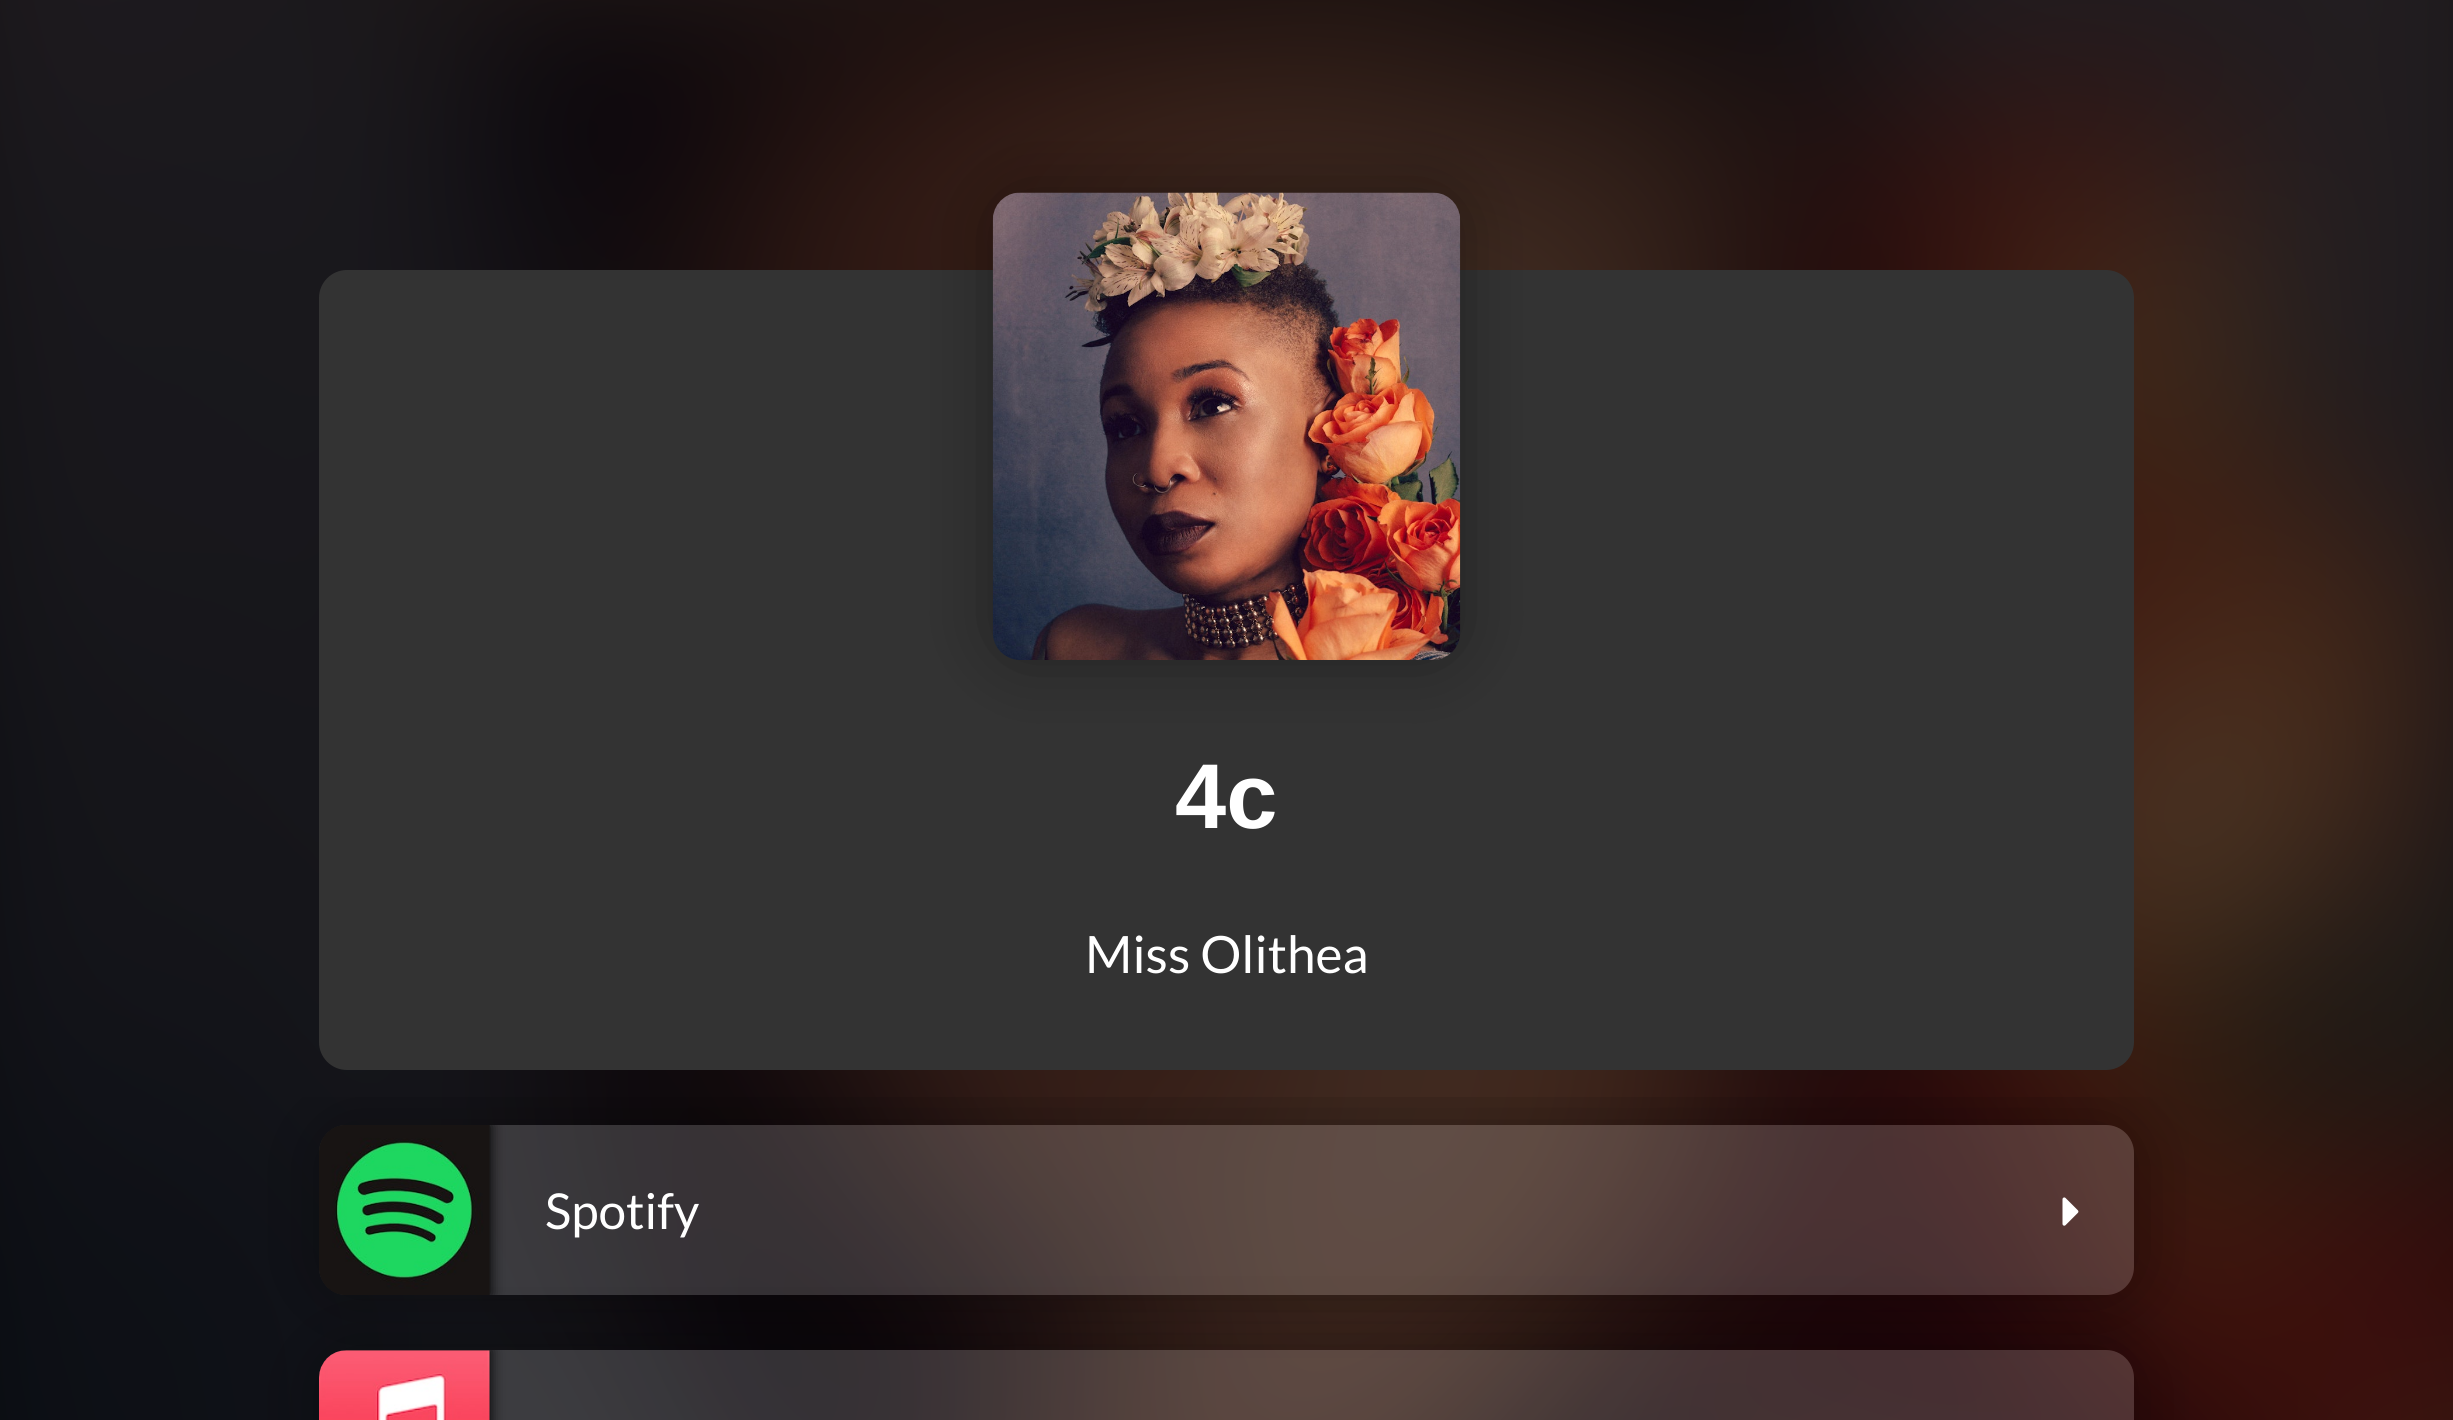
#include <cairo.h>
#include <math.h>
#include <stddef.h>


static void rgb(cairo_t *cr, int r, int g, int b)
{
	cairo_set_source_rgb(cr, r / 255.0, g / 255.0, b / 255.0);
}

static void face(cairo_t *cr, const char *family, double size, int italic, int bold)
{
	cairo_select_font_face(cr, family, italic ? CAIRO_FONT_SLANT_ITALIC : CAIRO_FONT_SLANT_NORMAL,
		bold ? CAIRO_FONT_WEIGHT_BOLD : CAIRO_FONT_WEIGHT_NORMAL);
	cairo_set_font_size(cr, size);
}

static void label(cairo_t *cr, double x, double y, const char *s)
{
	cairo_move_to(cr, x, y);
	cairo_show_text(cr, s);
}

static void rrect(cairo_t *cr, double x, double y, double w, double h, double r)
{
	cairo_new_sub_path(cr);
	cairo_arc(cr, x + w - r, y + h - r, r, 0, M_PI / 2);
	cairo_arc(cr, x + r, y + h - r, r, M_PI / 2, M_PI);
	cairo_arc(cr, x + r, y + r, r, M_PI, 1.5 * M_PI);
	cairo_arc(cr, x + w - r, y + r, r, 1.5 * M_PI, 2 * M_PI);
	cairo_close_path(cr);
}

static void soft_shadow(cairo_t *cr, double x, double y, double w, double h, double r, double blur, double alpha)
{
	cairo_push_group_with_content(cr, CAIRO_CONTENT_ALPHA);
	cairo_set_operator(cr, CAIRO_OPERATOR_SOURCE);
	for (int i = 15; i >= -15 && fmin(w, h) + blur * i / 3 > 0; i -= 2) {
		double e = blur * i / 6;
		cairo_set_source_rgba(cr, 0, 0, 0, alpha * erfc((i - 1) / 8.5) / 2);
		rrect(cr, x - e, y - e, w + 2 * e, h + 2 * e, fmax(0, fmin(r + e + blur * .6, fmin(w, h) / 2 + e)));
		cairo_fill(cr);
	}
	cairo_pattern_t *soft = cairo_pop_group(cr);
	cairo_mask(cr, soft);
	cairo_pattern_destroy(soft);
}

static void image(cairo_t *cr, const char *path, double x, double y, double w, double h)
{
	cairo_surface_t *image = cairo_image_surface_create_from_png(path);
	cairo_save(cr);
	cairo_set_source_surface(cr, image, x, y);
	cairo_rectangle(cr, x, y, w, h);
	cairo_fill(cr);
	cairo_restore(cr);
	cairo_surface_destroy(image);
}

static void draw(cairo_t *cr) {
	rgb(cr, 0, 0, 0);
	cairo_paint(cr);
	image(cr, "image0.png", 0, 0, 2453, 1420);
	cairo_save(cr);
	cairo_rectangle(cr, 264, 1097, 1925, 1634);
	cairo_clip(cr);
	cairo_set_fill_rule(cr, CAIRO_FILL_RULE_EVEN_ODD);
	cairo_new_path(cr);
	cairo_move_to(cr, 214, 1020);
	cairo_line_to(cr, 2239, 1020);
	cairo_line_to(cr, 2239, 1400);
	cairo_line_to(cr, 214, 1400);
	cairo_close_path(cr);
	cairo_move_to(cr, 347, 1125);
	cairo_line_to(cr, 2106, 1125);
	cairo_curve_to(cr, 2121.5, 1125, 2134, 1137.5, 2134, 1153);
	cairo_line_to(cr, 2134, 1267);
	cairo_curve_to(cr, 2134, 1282.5, 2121.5, 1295, 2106, 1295);
	cairo_line_to(cr, 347, 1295);
	cairo_curve_to(cr, 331.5, 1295, 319, 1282.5, 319, 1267);
	cairo_line_to(cr, 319, 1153);
	cairo_curve_to(cr, 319, 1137.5, 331.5, 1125, 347, 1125);
	cairo_close_path(cr);
	cairo_clip(cr);
	soft_shadow(cr, 319, 1125, 1815, 170, 28, 34.5, 0.35);
	cairo_restore(cr);
	rgb(cr, 51, 51, 51);
	rrect(cr, 319, 270, 1815, 800, 28);
	cairo_fill(cr);
	rgb(cr, 0, 0, 0);
	soft_shadow(cr, 993, 193, 467, 467, 28, 34.5, 0.35);
	image(cr, "image1.png", 992, 192, 469, 468);
	face(cr, "Liberation Sans", 92, 0, 1);
	rgb(cr, 255, 255, 255);
	label(cr, 1175, 828, "4c");
	face(cr, "Lato", 51.5, 0, 0);
	label(cr, 1085, 973, "Miss Olithea");
	cairo_set_source_rgba(cr, 1, 1, 1, 0.17);
	rrect(cr, 319, 1125, 1815, 170, 28);
	cairo_fill(cr);
	cairo_save(cr);
	rrect(cr, 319, 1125, 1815, 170, 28);
	cairo_clip(cr);
	rgb(cr, 0, 0, 0);
	soft_shadow(cr, 319, 1125, 171, 170, 0, 7, 1);
	cairo_restore(cr);
	image(cr, "image2.png", 319, 1125, 171, 170);
	face(cr, "Lato", 49.5, 0, 0);
	rgb(cr, 255, 255, 255);
	label(cr, 545, 1229, "Spotify");
	image(cr, "image3.png", 2062, 1197, 17, 29);
	cairo_save(cr);
	cairo_rectangle(cr, 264, 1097, 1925, 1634);
	cairo_clip(cr);
	cairo_set_fill_rule(cr, CAIRO_FILL_RULE_EVEN_ODD);
	cairo_new_path(cr);
	cairo_move_to(cr, 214, 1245);
	cairo_line_to(cr, 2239, 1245);
	cairo_line_to(cr, 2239, 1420);
	cairo_line_to(cr, 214, 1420);
	cairo_close_path(cr);
	cairo_move_to(cr, 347, 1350);
	cairo_line_to(cr, 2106, 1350);
	cairo_curve_to(cr, 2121.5, 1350, 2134, 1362.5, 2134, 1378);
	cairo_line_to(cr, 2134, 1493);
	cairo_curve_to(cr, 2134, 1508.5, 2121.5, 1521, 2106, 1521);
	cairo_line_to(cr, 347, 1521);
	cairo_curve_to(cr, 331.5, 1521, 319, 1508.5, 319, 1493);
	cairo_line_to(cr, 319, 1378);
	cairo_curve_to(cr, 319, 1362.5, 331.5, 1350, 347, 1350);
	cairo_close_path(cr);
	cairo_clip(cr);
	rgb(cr, 0, 0, 0);
	soft_shadow(cr, 319, 1350, 1815, 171, 28, 34.5, 0.35);
	cairo_restore(cr);
	cairo_set_source_rgba(cr, 1, 1, 1, 0.17);
	rrect(cr, 319, 1350, 1815, 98, 28);
	cairo_fill(cr);
	cairo_save(cr);
	rrect(cr, 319, 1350, 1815, 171, 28);
	cairo_clip(cr);
	rgb(cr, 0, 0, 0);
	soft_shadow(cr, 319, 1350, 171, 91, 0, 7, 1);
	cairo_restore(cr);
	image(cr, "image4.png", 319, 1350, 171, 70);
}

int main(void) {
	cairo_surface_t *surface = cairo_image_surface_create(CAIRO_FORMAT_RGB24, 2453, 1420);
	cairo_t *cr = cairo_create(surface);
	cairo_font_options_t *options = cairo_font_options_create();
	cairo_font_options_set_hint_metrics(options, CAIRO_HINT_METRICS_OFF);
	cairo_font_options_set_hint_style(options, CAIRO_HINT_STYLE_NONE);
	cairo_set_font_options(cr, options);
	cairo_set_miter_limit(cr, 4);
	draw(cr);
	cairo_surface_write_to_png(surface, "render.png");
	cairo_font_options_destroy(options);
	cairo_destroy(cr);
	cairo_surface_destroy(surface);
	return 0;
}
